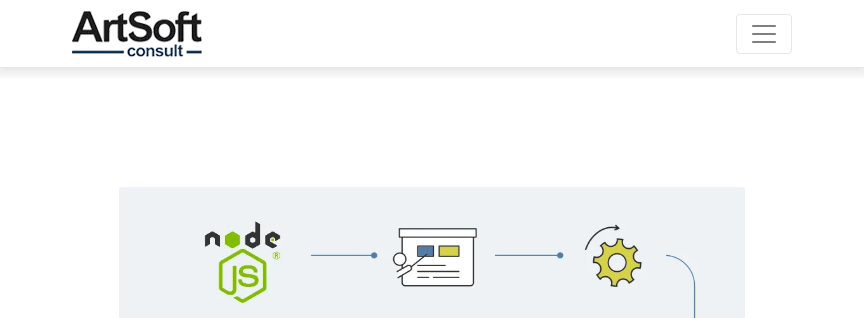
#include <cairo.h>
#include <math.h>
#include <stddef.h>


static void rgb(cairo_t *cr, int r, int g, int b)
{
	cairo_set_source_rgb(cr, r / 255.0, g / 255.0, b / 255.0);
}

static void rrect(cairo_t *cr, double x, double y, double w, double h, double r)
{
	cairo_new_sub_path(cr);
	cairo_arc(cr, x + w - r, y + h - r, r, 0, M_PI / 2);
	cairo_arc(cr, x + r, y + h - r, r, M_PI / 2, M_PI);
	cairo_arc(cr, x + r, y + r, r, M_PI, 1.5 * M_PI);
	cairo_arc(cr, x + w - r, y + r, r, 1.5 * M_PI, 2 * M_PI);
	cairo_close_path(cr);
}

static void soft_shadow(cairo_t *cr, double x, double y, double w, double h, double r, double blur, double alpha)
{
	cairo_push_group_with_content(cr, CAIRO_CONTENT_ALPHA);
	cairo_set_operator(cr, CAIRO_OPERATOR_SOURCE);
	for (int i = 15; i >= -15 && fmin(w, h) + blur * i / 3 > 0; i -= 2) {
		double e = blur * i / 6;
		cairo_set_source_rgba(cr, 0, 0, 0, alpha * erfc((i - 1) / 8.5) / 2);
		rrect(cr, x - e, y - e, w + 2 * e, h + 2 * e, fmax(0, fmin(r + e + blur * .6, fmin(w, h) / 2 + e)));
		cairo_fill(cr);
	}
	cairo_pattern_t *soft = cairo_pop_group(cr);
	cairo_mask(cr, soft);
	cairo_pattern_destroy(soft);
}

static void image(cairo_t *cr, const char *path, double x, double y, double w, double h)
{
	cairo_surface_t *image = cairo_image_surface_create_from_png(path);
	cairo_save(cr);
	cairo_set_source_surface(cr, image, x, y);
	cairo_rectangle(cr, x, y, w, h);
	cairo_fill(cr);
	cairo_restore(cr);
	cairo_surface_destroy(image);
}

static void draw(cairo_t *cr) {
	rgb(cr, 255, 255, 255);
	cairo_paint(cr);
	cairo_save(cr);
	cairo_rectangle(cr, 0, 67, 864, 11);
	cairo_clip(cr);
	rgb(cr, 0, 0, 0);
	soft_shadow(cr, 0, 3, 864, 67, 0, 7.5, 0.15);
	cairo_restore(cr);
	image(cr, "image0.png", 72, 11, 130, 46);
	rrect(cr, 736.5, 14.5, 55, 39, 3.5);
	rgb(cr, 230, 230, 230);
	cairo_set_line_width(cr, 1);
	cairo_stroke(cr);
	image(cr, "image1.png", 752, 25, 24, 18);
	image(cr, "image2.png", 119, 187, 626, 131);
}

int main(void) {
	cairo_surface_t *surface = cairo_image_surface_create(CAIRO_FORMAT_RGB24, 864, 318);
	cairo_t *cr = cairo_create(surface);
	cairo_font_options_t *options = cairo_font_options_create();
	cairo_font_options_set_hint_metrics(options, CAIRO_HINT_METRICS_OFF);
	cairo_font_options_set_hint_style(options, CAIRO_HINT_STYLE_NONE);
	cairo_set_font_options(cr, options);
	cairo_set_miter_limit(cr, 4);
	draw(cr);
	cairo_surface_write_to_png(surface, "render.png");
	cairo_font_options_destroy(options);
	cairo_destroy(cr);
	cairo_surface_destroy(surface);
	return 0;
}
